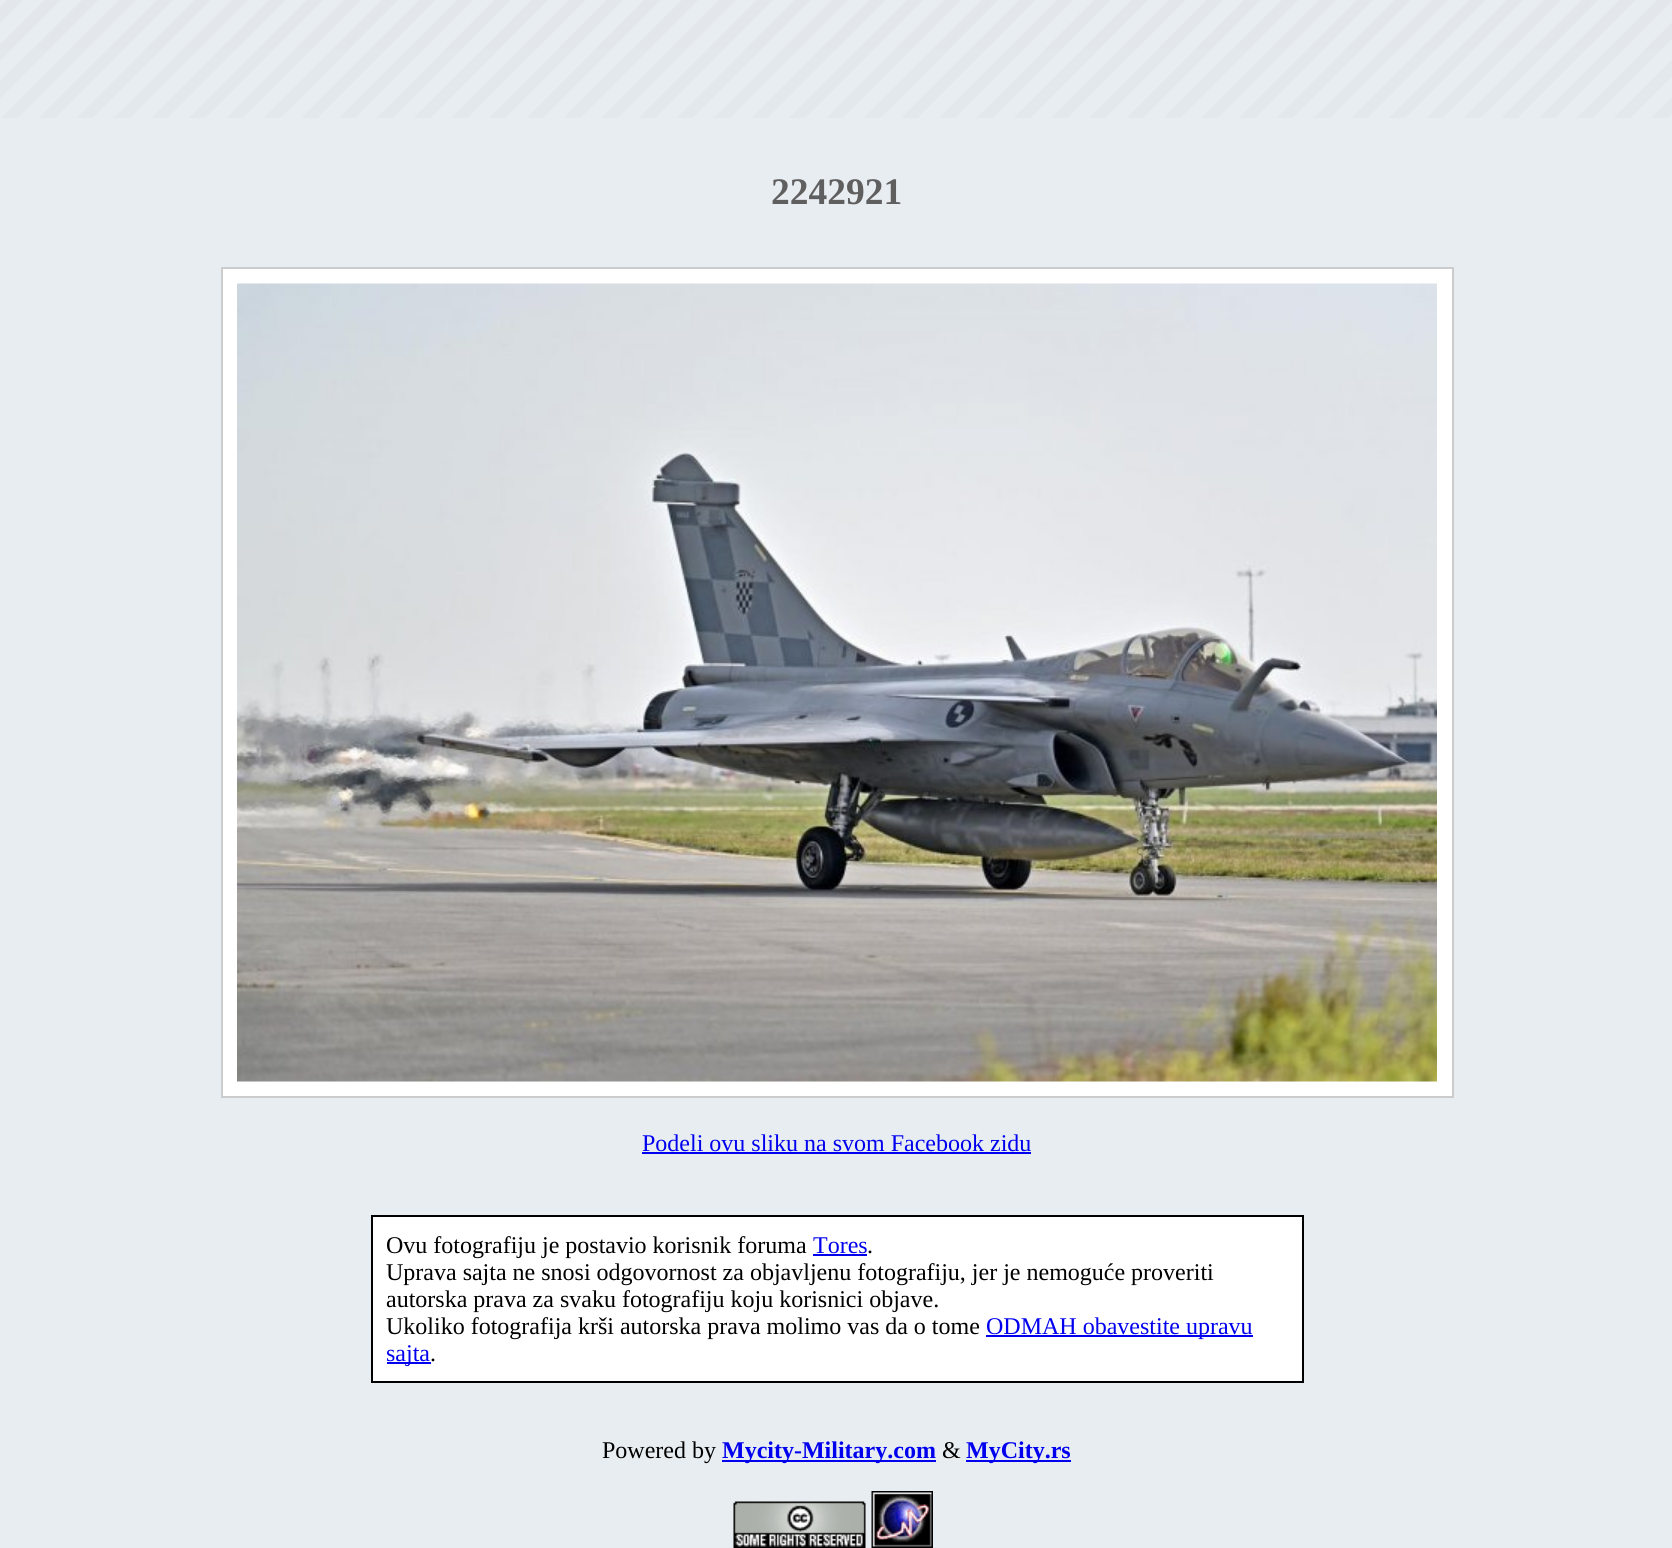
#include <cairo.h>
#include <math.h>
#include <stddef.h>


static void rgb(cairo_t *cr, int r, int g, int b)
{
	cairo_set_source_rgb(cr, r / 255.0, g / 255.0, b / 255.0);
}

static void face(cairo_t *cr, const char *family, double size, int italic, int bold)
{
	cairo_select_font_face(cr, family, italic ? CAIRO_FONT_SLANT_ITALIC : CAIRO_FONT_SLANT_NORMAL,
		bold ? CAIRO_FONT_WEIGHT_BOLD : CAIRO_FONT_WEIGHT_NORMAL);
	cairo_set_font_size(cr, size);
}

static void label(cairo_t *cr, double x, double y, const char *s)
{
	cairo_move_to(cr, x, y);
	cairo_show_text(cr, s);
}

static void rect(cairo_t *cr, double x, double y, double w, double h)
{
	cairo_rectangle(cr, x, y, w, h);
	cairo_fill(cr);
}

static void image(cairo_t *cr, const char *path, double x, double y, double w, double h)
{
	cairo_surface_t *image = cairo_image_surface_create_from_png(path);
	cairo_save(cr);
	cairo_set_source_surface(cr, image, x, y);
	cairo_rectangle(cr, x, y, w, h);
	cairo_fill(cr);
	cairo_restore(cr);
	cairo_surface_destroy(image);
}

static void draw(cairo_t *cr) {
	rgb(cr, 232, 237, 241);
	cairo_paint(cr);
	image(cr, "image0.png", 0, 0, 1672, 118);
	face(cr, "Liberation Serif", 37.5, 0, 1);
	rgb(cr, 96, 95, 96);
	label(cr, 771, 204, "2242921");
	rgb(cr, 255, 255, 255);
	cairo_rectangle(cr, 222, 268, 1231, 829);
	cairo_fill_preserve(cr);
	rgb(cr, 204, 204, 204);
	cairo_stroke(cr);
	image(cr, "image1.png", 237, 283, 1200, 799);
	face(cr, "Liberation Serif", 24, 0, 0);
	rgb(cr, 0, 0, 238);
	label(cr, 642, 1151, "Podeli ovu sliku na svom Facebook zidu");
	rect(cr, 642, 1152, 389, 2);
	rgb(cr, 255, 255, 255);
	cairo_rectangle(cr, 372, 1216, 931, 166);
	cairo_fill_preserve(cr);
	rgb(cr, 0, 0, 0);
	cairo_stroke(cr);
	label(cr, 386, 1253, "Ovu fotografiju je postavio korisnik foruma");
	rgb(cr, 0, 0, 238);
	label(cr, 813, 1253, "Tores");
	rect(cr, 813, 1254, 54, 2);
	rgb(cr, 0, 0, 0);
	label(cr, 867, 1253, ".");
	label(cr, 386, 1280, "Uprava sajta ne snosi odgovornost za objavljenu fotografiju, jer je nemoguće proveriti");
	label(cr, 386, 1307, "autorska prava za svaku fotografiju koju korisnici objave.");
	label(cr, 386, 1334, "Ukoliko fotografija krši autorska prava molimo vas da o tome");
	rgb(cr, 0, 0, 238);
	rect(cr, 986, 1335, 267, 2);
	label(cr, 986, 1334, "ODMAH obavestite upravu");
	rect(cr, 387, 1362, 44, 2);
	label(cr, 386, 1361, "sajta");
	rgb(cr, 0, 0, 0);
	label(cr, 430, 1361, ".");
	label(cr, 602, 1458, "Powered by");
	rgb(cr, 0, 0, 238);
	rect(cr, 722, 1460, 214, 2);
	face(cr, "Liberation Serif", 24, 0, 1);
	label(cr, 722, 1458, "Mycity-Military.com");
	face(cr, "Liberation Serif", 24, 0, 0);
	rgb(cr, 0, 0, 0);
	label(cr, 942, 1458, "&");
	rgb(cr, 0, 0, 238);
	rect(cr, 966, 1460, 105, 2);
	face(cr, "Liberation Serif", 24, 0, 1);
	label(cr, 966, 1458, "MyCity.rs");
	image(cr, "image2.png", 733, 1501, 133, 47);
	image(cr, "image3.png", 871, 1491, 62, 57);
}

int main(void) {
	cairo_surface_t *surface = cairo_image_surface_create(CAIRO_FORMAT_RGB24, 1672, 1548);
	cairo_t *cr = cairo_create(surface);
	cairo_font_options_t *options = cairo_font_options_create();
	cairo_font_options_set_hint_metrics(options, CAIRO_HINT_METRICS_OFF);
	cairo_font_options_set_hint_style(options, CAIRO_HINT_STYLE_NONE);
	cairo_set_font_options(cr, options);
	cairo_set_miter_limit(cr, 4);
	draw(cr);
	cairo_surface_write_to_png(surface, "render.png");
	cairo_font_options_destroy(options);
	cairo_destroy(cr);
	cairo_surface_destroy(surface);
	return 0;
}
